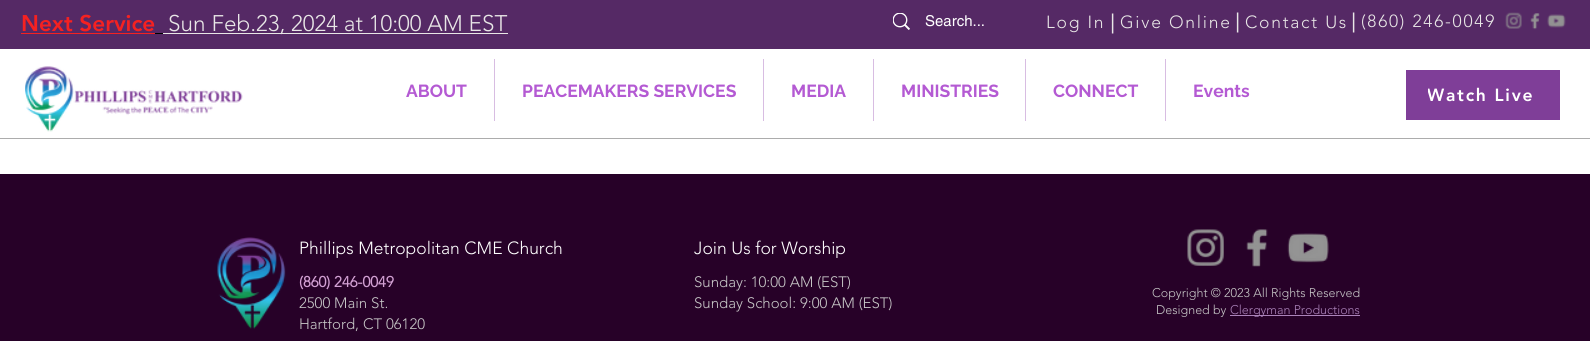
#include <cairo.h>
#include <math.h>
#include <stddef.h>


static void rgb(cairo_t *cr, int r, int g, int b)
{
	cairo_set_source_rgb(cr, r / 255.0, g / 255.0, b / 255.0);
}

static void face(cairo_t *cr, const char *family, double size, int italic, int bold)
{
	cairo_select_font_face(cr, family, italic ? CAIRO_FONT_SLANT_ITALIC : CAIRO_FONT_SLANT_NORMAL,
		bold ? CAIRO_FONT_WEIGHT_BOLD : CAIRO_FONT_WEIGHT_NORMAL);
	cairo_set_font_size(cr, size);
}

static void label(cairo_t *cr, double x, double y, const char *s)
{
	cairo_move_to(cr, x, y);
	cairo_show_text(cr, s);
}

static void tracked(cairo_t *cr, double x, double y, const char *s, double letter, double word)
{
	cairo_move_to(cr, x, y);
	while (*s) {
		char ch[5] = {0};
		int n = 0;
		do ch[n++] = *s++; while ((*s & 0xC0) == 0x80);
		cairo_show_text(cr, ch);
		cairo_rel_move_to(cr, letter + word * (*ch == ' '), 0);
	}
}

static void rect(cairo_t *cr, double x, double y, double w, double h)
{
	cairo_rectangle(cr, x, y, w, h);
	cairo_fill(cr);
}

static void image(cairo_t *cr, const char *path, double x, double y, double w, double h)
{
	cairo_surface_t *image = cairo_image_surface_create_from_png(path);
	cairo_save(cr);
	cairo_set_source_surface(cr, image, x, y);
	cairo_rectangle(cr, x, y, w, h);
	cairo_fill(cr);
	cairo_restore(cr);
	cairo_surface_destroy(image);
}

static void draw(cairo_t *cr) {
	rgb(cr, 255, 255, 255);
	cairo_paint(cr);
	rgb(cr, 85, 41, 101);
	rect(cr, 0, 0, 1590, 49);
	face(cr, "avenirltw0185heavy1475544 Black", 22.5, 0, 0);
	rgb(cr, 245, 33, 33);
	label(cr, 21, 31, "Next Service");
	rect(cr, 21, 33, 134, 1);
	rgb(cr, 0, 0, 0);
	rect(cr, 155, 33, 8, 1);
	rgb(cr, 232, 230, 230);
	rect(cr, 163, 33, 345, 1);
	face(cr, "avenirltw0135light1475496 Light", 22.5, 0, 0);
	label(cr, 168, 31, "Sun Feb.23, 2024 at 10:00 AM EST");
	image(cr, "image0.png", 893, 13, 17, 17);
	face(cr, "helvetica", 15, 0, 0);
	rgb(cr, 255, 255, 255);
	label(cr, 925, 26, "Search...");
	face(cr, "avenirltw0135light1475496 Light", 17.5, 0, 0);
	rgb(cr, 232, 230, 230);
	tracked(cr, 1046, 28, "Log In", 1.75, 0);
	face(cr, "helvetica", 20, 0, 0);
	label(cr, 1110, 29, "|");
	face(cr, "avenirltw0135light1475496 Light", 17.5, 0, 0);
	tracked(cr, 1120, 28, "Give Online", 1.75, 0);
	face(cr, "helvetica", 20, 0, 0);
	label(cr, 1235, 28, "|");
	face(cr, "avenirltw0135light1475496 Light", 17.5, 0, 0);
	tracked(cr, 1245, 28, "Contact Us", 1.75, 0);
	face(cr, "helvetica", 20, 0, 0);
	label(cr, 1351, 28, "|");
	face(cr, "avenirltw0135light1475496 Light", 17.5, 0, 0);
	tracked(cr, 1361, 27, "(860) 246-0049", 1.75, 0);
	image(cr, "image1.png", 1505, 12, 17, 17);
	image(cr, "image2.png", 1530, 13, 10, 17);
	image(cr, "image3.png", 1547, 14, 19, 14);
	face(cr, "Raleway", 17.5, 0, 1);
	rgb(cr, 180, 90, 211);
	label(cr, 406, 97, "ABOUT");
	rgb(cr, 216, 189, 226);
	rect(cr, 494, 59, 1, 62);
	rgb(cr, 180, 90, 211);
	label(cr, 522, 97, "PEACEMAKERS SERVICES");
	rgb(cr, 216, 189, 226);
	rect(cr, 763, 59, 1, 62);
	rgb(cr, 180, 90, 211);
	label(cr, 791, 97, "MEDIA");
	rgb(cr, 216, 189, 226);
	rect(cr, 873, 59, 1, 62);
	rgb(cr, 180, 90, 211);
	label(cr, 901, 97, "MINISTRIES");
	rgb(cr, 216, 189, 226);
	rect(cr, 1025, 59, 1, 62);
	rgb(cr, 180, 90, 211);
	label(cr, 1053, 97, "CONNECT");
	rgb(cr, 216, 189, 226);
	rect(cr, 1165, 59, 1, 62);
	rgb(cr, 180, 90, 211);
	label(cr, 1193, 97, "Events");
	rgb(cr, 127, 62, 152);
	rect(cr, 1406, 70, 154, 50);
	cairo_save(cr);
	cairo_rectangle(cr, 1428, 85, 106, 21);
	cairo_clip(cr);
	face(cr, "avenirltw0185heavy1475544 Black", 17.5, 0, 0);
	rgb(cr, 255, 255, 255);
	tracked(cr, 1427, 101, "Watch Live", 1.75, 0);
	cairo_restore(cr);
	rgb(cr, 172, 172, 172);
	rect(cr, 0, 138, 1590, 1);
	image(cr, "image4.png", 25, 66, 218, 66);
	rgb(cr, 39, 1, 40);
	rect(cr, 0, 174, 1590, 167);
	image(cr, "image5.png", 217, 237, 69, 92);
	face(cr, "avenirltw0135light1475496 Light", 17.5, 0, 0);
	rgb(cr, 255, 255, 255);
	label(cr, 299, 254, "Phillips Metropolitan CME Church");
	label(cr, 694, 254, "Join Us for Worship");
	image(cr, "image6.png", 1187, 229, 37, 37);
	image(cr, "image7.png", 1246, 229, 22, 38);
	image(cr, "image8.png", 1287, 233, 42, 30);
	face(cr, "avenirltw0135light1475496", 15, 0, 1);
	rgb(cr, 210, 160, 211);
	label(cr, 299, 287, "(860) 246-0049");
	face(cr, "avenirltw0135light1475496 Light", 15, 0, 0);
	rgb(cr, 199, 199, 199);
	label(cr, 299, 308, "2500 Main St.");
	label(cr, 299, 329, "Hartford, CT 06120");
	label(cr, 694, 287, "Sunday: 10:00 AM (EST)");
	label(cr, 694, 308, "Sunday School: 9:00 AM (EST)");
	face(cr, "avenirltw0135light1475496 Light", 12.5, 0, 0);
	label(cr, 1152, 297, "Copyright © 2023 All Rights Reserved");
	label(cr, 1156, 314, "Designed by");
	rgb(cr, 171, 131, 186);
	rect(cr, 1230, 315, 130, 1);
	label(cr, 1230, 314, "Clergyman Productions");
}

int main(void) {
	cairo_surface_t *surface = cairo_image_surface_create(CAIRO_FORMAT_RGB24, 1590, 341);
	cairo_t *cr = cairo_create(surface);
	cairo_font_options_t *options = cairo_font_options_create();
	cairo_font_options_set_hint_metrics(options, CAIRO_HINT_METRICS_OFF);
	cairo_font_options_set_hint_style(options, CAIRO_HINT_STYLE_NONE);
	cairo_set_font_options(cr, options);
	cairo_set_miter_limit(cr, 4);
	draw(cr);
	cairo_surface_write_to_png(surface, "render.png");
	cairo_font_options_destroy(options);
	cairo_destroy(cr);
	cairo_surface_destroy(surface);
	return 0;
}
